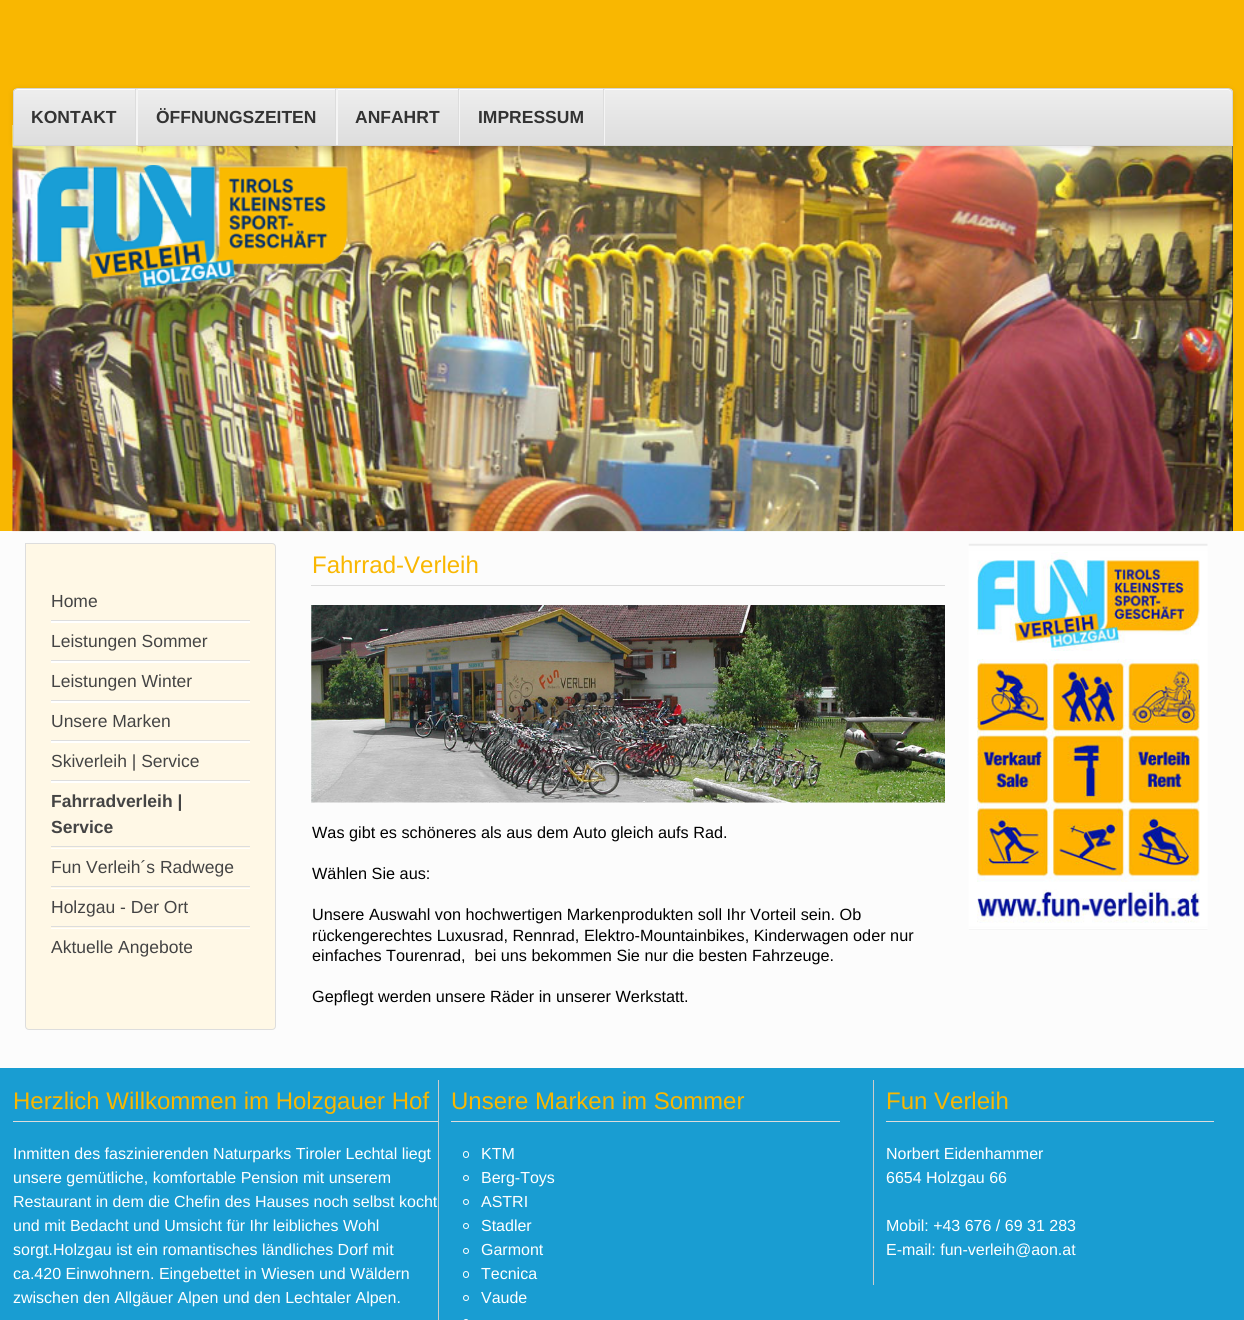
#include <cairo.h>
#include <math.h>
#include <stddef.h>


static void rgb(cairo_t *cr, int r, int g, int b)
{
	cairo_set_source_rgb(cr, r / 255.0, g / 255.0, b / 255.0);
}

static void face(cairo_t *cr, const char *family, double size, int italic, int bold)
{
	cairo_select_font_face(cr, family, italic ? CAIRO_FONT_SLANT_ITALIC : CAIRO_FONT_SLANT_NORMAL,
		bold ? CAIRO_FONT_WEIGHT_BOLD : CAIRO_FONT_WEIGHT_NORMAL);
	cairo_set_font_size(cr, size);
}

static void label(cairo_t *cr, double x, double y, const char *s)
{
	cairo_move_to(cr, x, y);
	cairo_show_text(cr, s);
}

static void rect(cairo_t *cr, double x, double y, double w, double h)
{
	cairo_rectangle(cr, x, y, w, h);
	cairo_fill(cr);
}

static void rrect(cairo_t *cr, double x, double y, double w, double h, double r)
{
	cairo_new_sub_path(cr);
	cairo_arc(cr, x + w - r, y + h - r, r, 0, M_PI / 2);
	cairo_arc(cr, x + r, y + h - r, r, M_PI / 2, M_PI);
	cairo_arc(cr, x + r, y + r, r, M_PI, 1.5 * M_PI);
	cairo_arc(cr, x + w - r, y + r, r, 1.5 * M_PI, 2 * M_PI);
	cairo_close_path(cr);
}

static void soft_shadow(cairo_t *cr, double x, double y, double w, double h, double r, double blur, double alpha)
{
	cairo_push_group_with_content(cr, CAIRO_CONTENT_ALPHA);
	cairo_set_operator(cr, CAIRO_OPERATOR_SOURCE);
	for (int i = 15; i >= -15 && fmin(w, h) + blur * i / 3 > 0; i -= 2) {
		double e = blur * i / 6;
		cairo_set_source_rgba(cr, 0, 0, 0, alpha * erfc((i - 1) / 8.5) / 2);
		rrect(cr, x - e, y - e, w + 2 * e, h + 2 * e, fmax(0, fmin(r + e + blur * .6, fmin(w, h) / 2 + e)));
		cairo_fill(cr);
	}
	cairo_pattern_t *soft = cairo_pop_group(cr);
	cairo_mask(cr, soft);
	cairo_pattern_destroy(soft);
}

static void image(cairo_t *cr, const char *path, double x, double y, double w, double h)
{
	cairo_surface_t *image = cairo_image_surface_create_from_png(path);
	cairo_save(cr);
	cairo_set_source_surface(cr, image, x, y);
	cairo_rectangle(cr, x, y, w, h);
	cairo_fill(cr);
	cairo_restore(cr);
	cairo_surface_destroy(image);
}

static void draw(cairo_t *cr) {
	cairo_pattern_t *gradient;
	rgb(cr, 252, 252, 252);
	cairo_paint(cr);
	rgb(cr, 249, 183, 1);
	rect(cr, 0, 0, 1244, 531);
	rgb(cr, 12, 26, 62);
	rect(cr, 1232, 146, 1, 385);
	image(cr, "image0.png", 12, 125, 1221, 407);
	rgb(cr, 0, 0, 0);
	soft_shadow(cr, 13, 89, 1220, 59, 5, 3, 0.1);
	cairo_save(cr);
	cairo_new_path(cr);
	cairo_move_to(cr, 18, 88);
	cairo_line_to(cr, 1228, 88);
	cairo_curve_to(cr, 1231, 88, 1233, 90, 1233, 93);
	cairo_line_to(cr, 1233, 146);
	cairo_line_to(cr, 13, 146);
	cairo_line_to(cr, 13, 93);
	cairo_curve_to(cr, 13, 90, 15, 88, 18, 88);
	cairo_close_path(cr);
	cairo_clip(cr);
	gradient = cairo_pattern_create_linear(623, 89, 623, 145);
	cairo_pattern_add_color_stop_rgba(gradient, 0, 0.933, 0.933, 0.933, 1);
	cairo_pattern_add_color_stop_rgba(gradient, 1, 0.867, 0.867, 0.867, 1);
	cairo_set_source(cr, gradient);
	cairo_pattern_destroy(gradient);
	rect(cr, 13, 89, 1220, 56);
	cairo_restore(cr);
	rgb(cr, 255, 255, 255);
	cairo_new_path(cr);
	cairo_move_to(cr, 18, 90);
	cairo_line_to(cr, 1228, 90);
	cairo_curve_to(cr, 1230, 90, 1231, 92, 1231, 94);
	cairo_curve_to(cr, 1231, 91, 1230, 89, 1227, 89);
	cairo_line_to(cr, 18, 89);
	cairo_curve_to(cr, 15, 89, 14, 91, 14, 94);
	cairo_curve_to(cr, 14, 92, 15, 90, 18, 90);
	cairo_close_path(cr);
	cairo_fill(cr);
	cairo_new_path(cr);
	cairo_move_to(cr, 18, 88.5);
	cairo_line_to(cr, 1228, 88.5);
	cairo_curve_to(cr, 1230.5, 88.5, 1232.5, 90.5, 1232.5, 93);
	cairo_line_to(cr, 1232.5, 145.5);
	cairo_line_to(cr, 13.5, 145.5);
	cairo_line_to(cr, 13.5, 93);
	cairo_curve_to(cr, 13.5, 90.5, 15.5, 88.5, 18, 88.5);
	cairo_close_path(cr);
	rgb(cr, 213, 213, 213);
	cairo_set_line_width(cr, 1);
	cairo_stroke(cr);
	rgb(cr, 245, 245, 245);
	rect(cr, 136, 89, 2, 56);
	rgb(cr, 221, 221, 221);
	rect(cr, 135, 89, 1, 56);
	face(cr, "Liberation Sans", 17.5, 0, 1);
	rgb(cr, 51, 51, 51);
	label(cr, 31, 123, "KONTAKT");
	rgb(cr, 245, 245, 245);
	rect(cr, 336, 89, 2, 56);
	rgb(cr, 221, 221, 221);
	rect(cr, 335, 89, 1, 56);
	rgb(cr, 51, 51, 51);
	label(cr, 156, 123, "ÖFFNUNGSZEITEN");
	rgb(cr, 245, 245, 245);
	rect(cr, 459, 89, 1, 56);
	rgb(cr, 221, 221, 221);
	rect(cr, 458, 89, 1, 56);
	rgb(cr, 51, 51, 51);
	label(cr, 355, 123, "ANFAHRT");
	rgb(cr, 245, 245, 245);
	rect(cr, 604, 89, 1, 56);
	rgb(cr, 221, 221, 221);
	rect(cr, 603, 89, 1, 56);
	rgb(cr, 51, 51, 51);
	label(cr, 478, 123, "IMPRESSUM");
	image(cr, "image1.png", 37, 165, 311, 123);
	rgb(cr, 255, 248, 230);
	cairo_new_path(cr);
	cairo_move_to(cr, 25.5, 543.5);
	cairo_line_to(cr, 272, 543.5);
	cairo_curve_to(cr, 274, 543.5, 275.5, 545, 275.5, 547);
	cairo_line_to(cr, 275.5, 1026);
	cairo_curve_to(cr, 275.5, 1028, 274, 1029.5, 272, 1029.5);
	cairo_line_to(cr, 29, 1029.5);
	cairo_curve_to(cr, 27, 1029.5, 25.5, 1028, 25.5, 1026);
	cairo_close_path(cr);
	cairo_fill_preserve(cr);
	rgb(cr, 221, 221, 221);
	cairo_stroke(cr);
	rgb(cr, 255, 255, 255);
	cairo_new_path(cr);
	cairo_move_to(cr, 51, 583);
	cairo_line_to(cr, 51, 623);
	cairo_line_to(cr, 250, 623);
	cairo_line_to(cr, 250, 621);
	cairo_line_to(cr, 51, 621);
	cairo_close_path(cr);
	cairo_fill(cr);
	rgb(cr, 221, 221, 221);
	rect(cr, 51, 620, 199, 1);
	face(cr, "Liberation Sans", 17.5, 0, 0);
	rgb(cr, 68, 68, 68);
	label(cr, 51, 607, "Home");
	rgb(cr, 255, 255, 255);
	cairo_new_path(cr);
	cairo_move_to(cr, 51, 623);
	cairo_line_to(cr, 51, 663);
	cairo_line_to(cr, 250, 663);
	cairo_line_to(cr, 250, 661);
	cairo_line_to(cr, 51, 661);
	cairo_close_path(cr);
	cairo_fill(cr);
	rgb(cr, 221, 221, 221);
	rect(cr, 51, 660, 199, 1);
	rgb(cr, 68, 68, 68);
	label(cr, 51, 647, "Leistungen Sommer");
	rgb(cr, 255, 255, 255);
	cairo_new_path(cr);
	cairo_move_to(cr, 51, 663);
	cairo_line_to(cr, 51, 703);
	cairo_line_to(cr, 250, 703);
	cairo_line_to(cr, 250, 701);
	cairo_line_to(cr, 51, 701);
	cairo_close_path(cr);
	cairo_fill(cr);
	rgb(cr, 221, 221, 221);
	rect(cr, 51, 700, 199, 1);
	rgb(cr, 68, 68, 68);
	label(cr, 51, 687, "Leistungen Winter");
	rgb(cr, 255, 255, 255);
	cairo_new_path(cr);
	cairo_move_to(cr, 51, 703);
	cairo_line_to(cr, 51, 743);
	cairo_line_to(cr, 250, 743);
	cairo_line_to(cr, 250, 741);
	cairo_line_to(cr, 51, 741);
	cairo_close_path(cr);
	cairo_fill(cr);
	rgb(cr, 221, 221, 221);
	rect(cr, 51, 740, 199, 1);
	rgb(cr, 68, 68, 68);
	label(cr, 51, 727, "Unsere Marken");
	rgb(cr, 255, 255, 255);
	cairo_new_path(cr);
	cairo_move_to(cr, 51, 743);
	cairo_line_to(cr, 51, 783);
	cairo_line_to(cr, 250, 783);
	cairo_line_to(cr, 250, 781);
	cairo_line_to(cr, 51, 781);
	cairo_close_path(cr);
	cairo_fill(cr);
	rgb(cr, 221, 221, 221);
	rect(cr, 51, 780, 199, 1);
	rgb(cr, 68, 68, 68);
	label(cr, 51, 767, "Skiverleih | Service");
	rgb(cr, 255, 255, 255);
	cairo_new_path(cr);
	cairo_move_to(cr, 51, 783);
	cairo_line_to(cr, 51, 849);
	cairo_line_to(cr, 250, 849);
	cairo_line_to(cr, 250, 848);
	cairo_line_to(cr, 51, 848);
	cairo_close_path(cr);
	cairo_fill(cr);
	rgb(cr, 221, 221, 221);
	rect(cr, 51, 846, 199, 1);
	face(cr, "Liberation Sans", 17.5, 0, 1);
	rgb(cr, 68, 68, 68);
	label(cr, 51, 807, "Fahrradverleih |");
	label(cr, 51, 833, "Service");
	rgb(cr, 255, 255, 255);
	cairo_new_path(cr);
	cairo_move_to(cr, 51, 849);
	cairo_line_to(cr, 51, 889);
	cairo_line_to(cr, 250, 889);
	cairo_line_to(cr, 250, 888);
	cairo_line_to(cr, 51, 888);
	cairo_close_path(cr);
	cairo_fill(cr);
	rgb(cr, 221, 221, 221);
	rect(cr, 51, 886, 199, 1);
	face(cr, "Liberation Sans", 17.5, 0, 0);
	rgb(cr, 68, 68, 68);
	label(cr, 51, 873, "Fun Verleih´s Radwege");
	rgb(cr, 255, 255, 255);
	cairo_new_path(cr);
	cairo_move_to(cr, 51, 889);
	cairo_line_to(cr, 51, 929);
	cairo_line_to(cr, 250, 929);
	cairo_line_to(cr, 250, 928);
	cairo_line_to(cr, 51, 928);
	cairo_close_path(cr);
	cairo_fill(cr);
	rgb(cr, 221, 221, 221);
	rect(cr, 51, 926, 199, 1);
	rgb(cr, 68, 68, 68);
	label(cr, 51, 913, "Holzgau - Der Ort");
	label(cr, 51, 953, "Aktuelle Angebote");
	rgb(cr, 221, 221, 221);
	rect(cr, 311, 585, 634, 1);
	face(cr, "Liberation Sans", 24, 0, 0);
	rgb(cr, 249, 183, 1);
	label(cr, 312, 573, "Fahrrad-Verleih");
	image(cr, "image2.png", 311, 605, 634, 198);
	face(cr, "Liberation Sans", 16.25, 0, 0);
	rgb(cr, 0, 0, 0);
	label(cr, 312, 838, "Was gibt es schöneres als aus dem Auto gleich aufs Rad.");
	label(cr, 312, 879, "Wählen Sie aus:");
	label(cr, 312, 920, "Unsere Auswahl von hochwertigen Markenprodukten soll Ihr Vorteil sein. Ob");
	label(cr, 312, 941, "rückengerechtes Luxusrad, Rennrad, Elektro-Mountainbikes, Kinderwagen oder nur");
	label(cr, 312, 961, "einfaches Tourenrad,  bei uns bekommen Sie nur die besten Fahrzeuge.");
	label(cr, 312, 1002, "Gepflegt werden unsere Räder in unserer Werkstatt.");
	image(cr, "image3.png", 968, 543, 240, 387);
	rgb(cr, 25, 157, 210);
	rect(cr, 0, 1068, 1244, 252);
	rgb(cr, 204, 204, 204);
	rect(cr, 438, 1080, 1, 240);
	rgb(cr, 221, 221, 221);
	rect(cr, 13, 1121, 425, 1);
	face(cr, "Liberation Sans", 24, 0, 0);
	rgb(cr, 249, 183, 1);
	label(cr, 13, 1109, "Herzlich Willkommen im Holzgauer Hof");
	face(cr, "Liberation Sans", 16, 0, 0);
	rgb(cr, 255, 255, 255);
	label(cr, 13, 1159, "Inmitten des faszinierenden Naturparks Tiroler Lechtal liegt");
	label(cr, 13, 1183, "unsere gemütliche, komfortable Pension mit unserem");
	label(cr, 13, 1207, "Restaurant in dem die Chefin des Hauses noch selbst kocht");
	label(cr, 13, 1231, "und mit Bedacht und Umsicht für Ihr leibliches Wohl");
	label(cr, 13, 1255, "sorgt.Holzgau ist ein romantisches ländliches Dorf mit");
	label(cr, 13, 1279, "ca.420 Einwohnern. Eingebettet in Wiesen und Wäldern");
	label(cr, 13, 1303, "zwischen den Allgäuer Alpen und den Lechtaler Alpen.");
	rgb(cr, 221, 221, 221);
	rect(cr, 451, 1121, 389, 1);
	face(cr, "Liberation Sans", 24, 0, 0);
	rgb(cr, 249, 183, 1);
	label(cr, 451, 1109, "Unsere Marken im Sommer");
	rrect(cr, 463.5, 1151.5, 5, 6, 2.5);
	rgb(cr, 255, 255, 255);
	cairo_stroke(cr);
	face(cr, "Liberation Sans", 16, 0, 0);
	label(cr, 481, 1159, "KTM");
	cairo_new_path(cr);
	cairo_arc(cr, 466, 1178, 2.5, 0, 2 * M_PI);
	cairo_stroke(cr);
	label(cr, 481, 1183, "Berg-Toys");
	cairo_new_path(cr);
	cairo_arc(cr, 466, 1202, 2.5, 0, 2 * M_PI);
	cairo_stroke(cr);
	label(cr, 481, 1207, "ASTRI");
	cairo_new_path(cr);
	cairo_arc(cr, 466, 1226, 2.5, 0, 2 * M_PI);
	cairo_stroke(cr);
	label(cr, 481, 1231, "Stadler");
	cairo_new_path(cr);
	cairo_arc(cr, 466, 1251, 2.5, 0, 2 * M_PI);
	cairo_stroke(cr);
	label(cr, 481, 1255, "Garmont");
	rrect(cr, 463.5, 1271.5, 5, 6, 2.5);
	cairo_stroke(cr);
	label(cr, 481, 1279, "Tecnica");
	cairo_new_path(cr);
	cairo_arc(cr, 466, 1298, 2.5, 0, 2 * M_PI);
	cairo_stroke(cr);
	label(cr, 481, 1303, "Vaude");
	rrect(cr, 463.5, 1319.5, 5, 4, 2.5);
	cairo_stroke(cr);
	rgb(cr, 204, 204, 204);
	rect(cr, 873, 1080, 1, 205);
	rgb(cr, 221, 221, 221);
	rect(cr, 886, 1121, 328, 1);
	face(cr, "Liberation Sans", 24, 0, 0);
	rgb(cr, 249, 183, 1);
	label(cr, 886, 1109, "Fun Verleih");
	face(cr, "Liberation Sans", 16, 0, 0);
	rgb(cr, 255, 255, 255);
	label(cr, 886, 1159, "Norbert Eidenhammer");
	label(cr, 886, 1183, "6654 Holzgau 66");
	label(cr, 886, 1231, "Mobil: +43 676 / 69 31 283");
	label(cr, 886, 1255, "E-mail: fun-verleih@aon.at");
}

int main(void) {
	cairo_surface_t *surface = cairo_image_surface_create(CAIRO_FORMAT_RGB24, 1244, 1320);
	cairo_t *cr = cairo_create(surface);
	cairo_font_options_t *options = cairo_font_options_create();
	cairo_font_options_set_hint_metrics(options, CAIRO_HINT_METRICS_OFF);
	cairo_font_options_set_hint_style(options, CAIRO_HINT_STYLE_NONE);
	cairo_set_font_options(cr, options);
	cairo_set_miter_limit(cr, 4);
	draw(cr);
	cairo_surface_write_to_png(surface, "render.png");
	cairo_font_options_destroy(options);
	cairo_destroy(cr);
	cairo_surface_destroy(surface);
	return 0;
}
